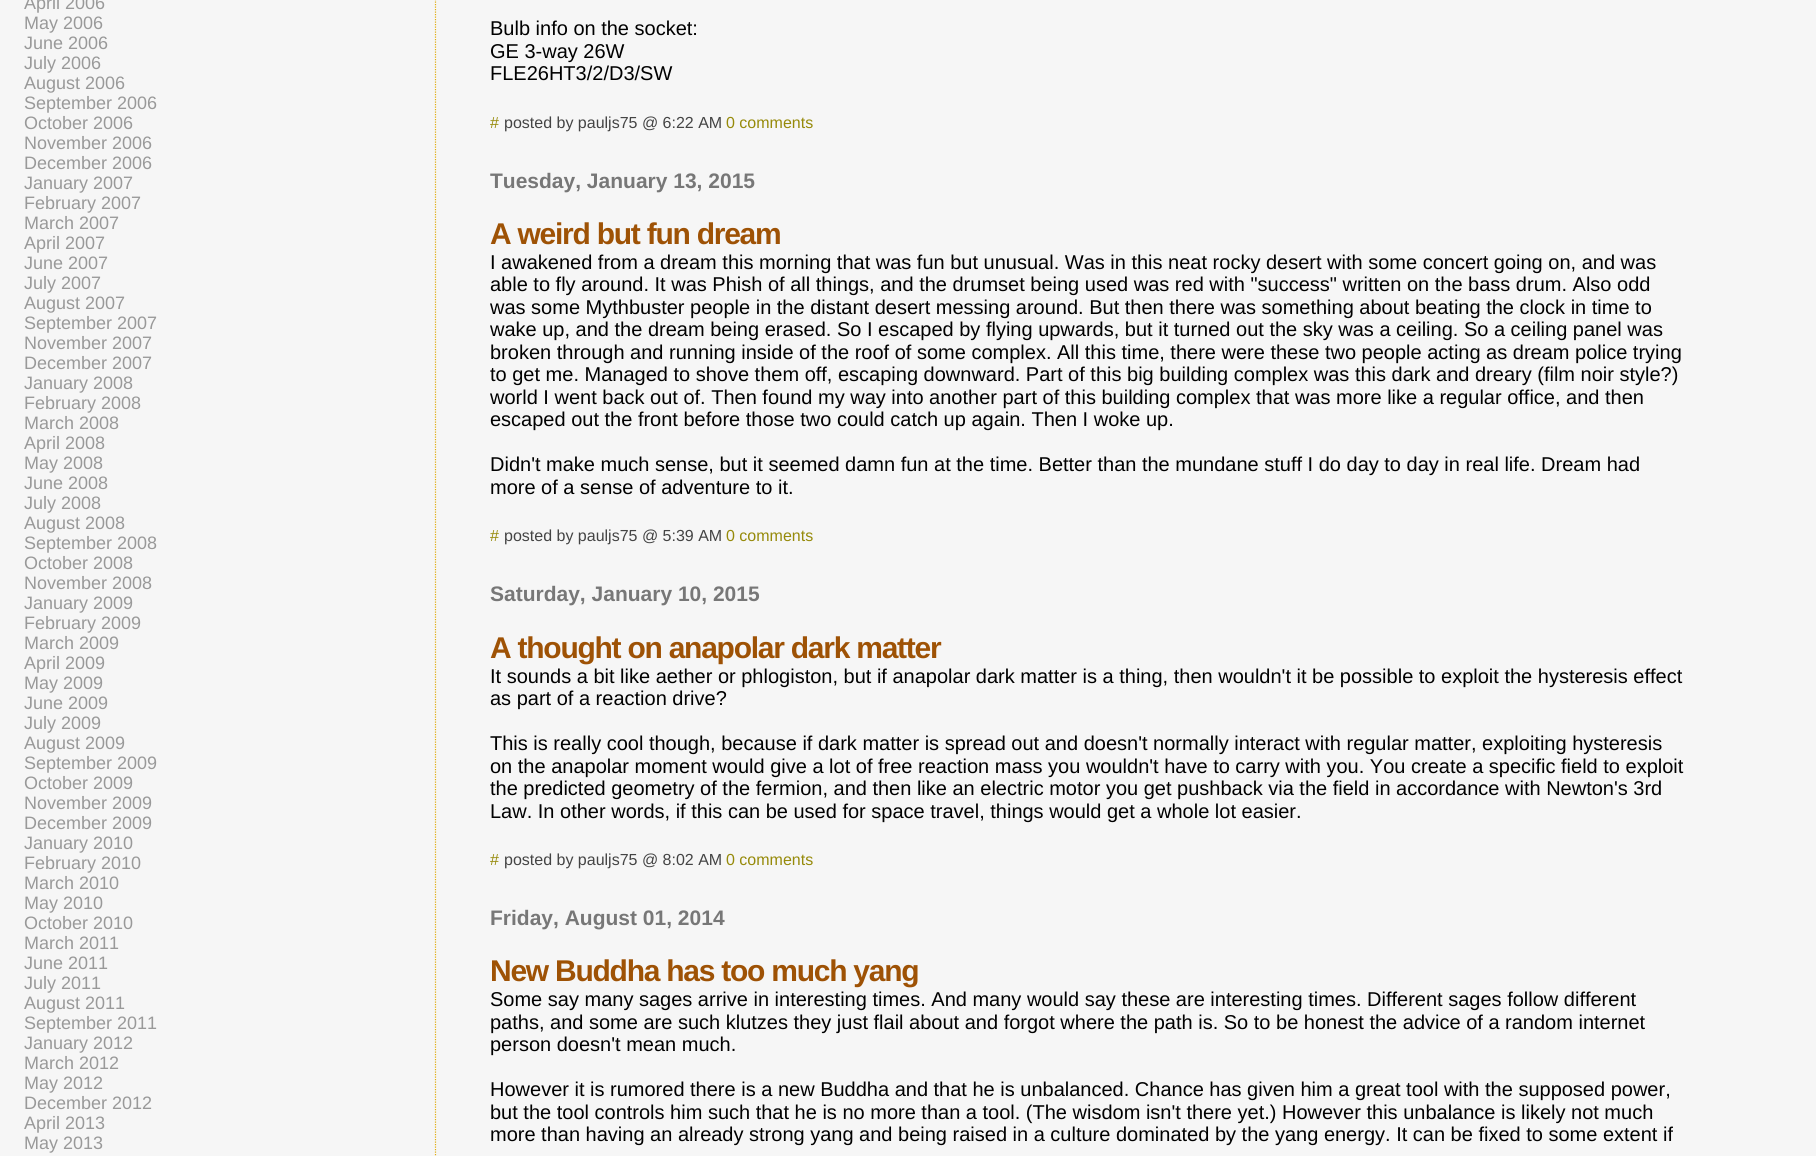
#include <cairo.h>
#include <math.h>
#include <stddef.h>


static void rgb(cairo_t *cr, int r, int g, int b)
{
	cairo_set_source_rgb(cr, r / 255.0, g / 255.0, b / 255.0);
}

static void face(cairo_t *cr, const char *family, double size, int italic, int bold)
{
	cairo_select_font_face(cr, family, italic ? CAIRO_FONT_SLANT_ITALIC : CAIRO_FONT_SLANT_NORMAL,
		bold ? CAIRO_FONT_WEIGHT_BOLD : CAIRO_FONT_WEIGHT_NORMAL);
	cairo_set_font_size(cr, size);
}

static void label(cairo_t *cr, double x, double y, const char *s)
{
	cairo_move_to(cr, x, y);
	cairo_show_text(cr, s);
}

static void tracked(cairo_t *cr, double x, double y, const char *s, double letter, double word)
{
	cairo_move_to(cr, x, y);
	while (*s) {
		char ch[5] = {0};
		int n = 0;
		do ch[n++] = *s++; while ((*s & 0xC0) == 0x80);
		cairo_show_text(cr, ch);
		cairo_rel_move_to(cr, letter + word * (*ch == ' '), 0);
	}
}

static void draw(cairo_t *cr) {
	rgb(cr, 246, 246, 246);
	cairo_paint(cr);
	face(cr, "Liberation Sans", 18, 0, 0);
	rgb(cr, 153, 153, 153);
	label(cr, 24, 9, "April 2006");
	label(cr, 24, 29, "May 2006");
	label(cr, 24, 49, "June 2006");
	label(cr, 24, 69, "July 2006");
	label(cr, 24, 89, "August 2006");
	label(cr, 24, 109, "September 2006");
	label(cr, 24, 129, "October 2006");
	label(cr, 24, 149, "November 2006");
	label(cr, 24, 169, "December 2006");
	label(cr, 24, 189, "January 2007");
	label(cr, 24, 209, "February 2007");
	label(cr, 24, 229, "March 2007");
	label(cr, 24, 249, "April 2007");
	label(cr, 24, 269, "June 2007");
	label(cr, 24, 289, "July 2007");
	label(cr, 24, 309, "August 2007");
	label(cr, 24, 329, "September 2007");
	label(cr, 24, 349, "November 2007");
	label(cr, 24, 369, "December 2007");
	label(cr, 24, 389, "January 2008");
	label(cr, 24, 409, "February 2008");
	label(cr, 24, 429, "March 2008");
	label(cr, 24, 449, "April 2008");
	label(cr, 24, 469, "May 2008");
	label(cr, 24, 489, "June 2008");
	label(cr, 24, 509, "July 2008");
	label(cr, 24, 529, "August 2008");
	label(cr, 24, 549, "September 2008");
	label(cr, 24, 569, "October 2008");
	label(cr, 24, 589, "November 2008");
	label(cr, 24, 609, "January 2009");
	label(cr, 24, 629, "February 2009");
	label(cr, 24, 649, "March 2009");
	label(cr, 24, 669, "April 2009");
	label(cr, 24, 689, "May 2009");
	label(cr, 24, 709, "June 2009");
	label(cr, 24, 729, "July 2009");
	label(cr, 24, 749, "August 2009");
	label(cr, 24, 769, "September 2009");
	label(cr, 24, 789, "October 2009");
	label(cr, 24, 809, "November 2009");
	label(cr, 24, 829, "December 2009");
	label(cr, 24, 849, "January 2010");
	label(cr, 24, 869, "February 2010");
	label(cr, 24, 889, "March 2010");
	label(cr, 24, 909, "May 2010");
	label(cr, 24, 929, "October 2010");
	label(cr, 24, 949, "March 2011");
	label(cr, 24, 969, "June 2011");
	label(cr, 24, 989, "July 2011");
	label(cr, 24, 1009, "August 2011");
	label(cr, 24, 1029, "September 2011");
	label(cr, 24, 1049, "January 2012");
	label(cr, 24, 1069, "March 2012");
	label(cr, 24, 1089, "May 2012");
	label(cr, 24, 1109, "December 2012");
	label(cr, 24, 1129, "April 2013");
	label(cr, 24, 1149, "May 2013");
	cairo_new_path(cr);
	cairo_move_to(cr, 435.5, -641);
	cairo_line_to(cr, 435.5, 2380);
	rgb(cr, 224, 173, 18);
	cairo_set_line_width(cr, 1.2);
	cairo_set_dash(cr, (double[]){1.25, 1.25}, 2, 0);
	cairo_stroke(cr);
	face(cr, "Liberation Sans", 20, 0, 0);
	rgb(cr, 0, 0, 0);
	label(cr, 490, 35, "Bulb info on the socket:");
	label(cr, 490, 58, "GE 3-way 26W");
	label(cr, 490, 80, "FLE26HT3/2/D3/SW");
	face(cr, "Liberation Sans", 16, 0, 0);
	rgb(cr, 150, 138, 10);
	label(cr, 490, 128, "#");
	rgb(cr, 68, 68, 68);
	label(cr, 504, 128, "posted by pauljs75 @ 6:22 AM");
	rgb(cr, 150, 138, 10);
	label(cr, 726, 128, "0 comments");
	face(cr, "Liberation Sans", 21, 0, 1);
	rgb(cr, 119, 119, 119);
	label(cr, 490, 188, "Tuesday, January 13, 2015");
	face(cr, "Liberation Sans", 30, 0, 1);
	rgb(cr, 158, 82, 5);
	tracked(cr, 490, 244, "A weird but fun dream", -1.25, 0);
	face(cr, "Liberation Sans", 20, 0, 0);
	rgb(cr, 0, 0, 0);
	label(cr, 490, 269, "I awakened from a dream this morning that was fun but unusual. Was in this neat rocky desert with some concert going on, and was");
	label(cr, 490, 291, "able to fly around. It was Phish of all things, and the drumset being used was red with \"success\" written on the bass drum. Also odd");
	label(cr, 490, 314, "was some Mythbuster people in the distant desert messing around. But then there was something about beating the clock in time to");
	label(cr, 490, 336, "wake up, and the dream being erased. So I escaped by flying upwards, but it turned out the sky was a ceiling. So a ceiling panel was");
	label(cr, 490, 359, "broken through and running inside of the roof of some complex. All this time, there were these two people acting as dream police trying");
	label(cr, 490, 381, "to get me. Managed to shove them off, escaping downward. Part of this big building complex was this dark and dreary (film noir style?)");
	label(cr, 490, 404, "world I went back out of. Then found my way into another part of this building complex that was more like a regular office, and then");
	label(cr, 490, 426, "escaped out the front before those two could catch up again. Then I woke up.");
	label(cr, 490, 471, "Didn't make much sense, but it seemed damn fun at the time. Better than the mundane stuff I do day to day in real life. Dream had");
	label(cr, 490, 494, "more of a sense of adventure to it.");
	face(cr, "Liberation Sans", 16, 0, 0);
	rgb(cr, 150, 138, 10);
	label(cr, 490, 541, "#");
	rgb(cr, 68, 68, 68);
	label(cr, 504, 541, "posted by pauljs75 @ 5:39 AM");
	rgb(cr, 150, 138, 10);
	label(cr, 726, 541, "0 comments");
	face(cr, "Liberation Sans", 21, 0, 1);
	rgb(cr, 119, 119, 119);
	label(cr, 490, 601, "Saturday, January 10, 2015");
	face(cr, "Liberation Sans", 30, 0, 1);
	rgb(cr, 158, 82, 5);
	tracked(cr, 490, 658, "A thought on anapolar dark matter", -1.25, 0);
	face(cr, "Liberation Sans", 20, 0, 0);
	rgb(cr, 0, 0, 0);
	label(cr, 490, 683, "It sounds a bit like aether or phlogiston, but if anapolar dark matter is a thing, then wouldn't it be possible to exploit the hysteresis effect");
	label(cr, 490, 705, "as part of a reaction drive?");
	label(cr, 490, 750, "This is really cool though, because if dark matter is spread out and doesn't normally interact with regular matter, exploiting hysteresis");
	label(cr, 490, 773, "on the anapolar moment would give a lot of free reaction mass you wouldn't have to carry with you. You create a specific field to exploit");
	label(cr, 490, 795, "the predicted geometry of the fermion, and then like an electric motor you get pushback via the field in accordance with Newton's 3rd");
	label(cr, 490, 818, "Law. In other words, if this can be used for space travel, things would get a whole lot easier.");
	face(cr, "Liberation Sans", 16, 0, 0);
	rgb(cr, 150, 138, 10);
	label(cr, 490, 865, "#");
	rgb(cr, 68, 68, 68);
	label(cr, 504, 865, "posted by pauljs75 @ 8:02 AM");
	rgb(cr, 150, 138, 10);
	label(cr, 726, 865, "0 comments");
	face(cr, "Liberation Sans", 21, 0, 1);
	rgb(cr, 119, 119, 119);
	label(cr, 490, 925, "Friday, August 01, 2014");
	face(cr, "Liberation Sans", 30, 0, 1);
	rgb(cr, 158, 82, 5);
	tracked(cr, 490, 981, "New Buddha has too much yang", -1.25, 0);
	face(cr, "Liberation Sans", 20, 0, 0);
	rgb(cr, 0, 0, 0);
	label(cr, 490, 1006, "Some say many sages arrive in interesting times. And many would say these are interesting times. Different sages follow different");
	label(cr, 490, 1029, "paths, and some are such klutzes they just flail about and forgot where the path is. So to be honest the advice of a random internet");
	label(cr, 490, 1051, "person doesn't mean much.");
	label(cr, 490, 1096, "However it is rumored there is a new Buddha and that he is unbalanced. Chance has given him a great tool with the supposed power,");
	label(cr, 490, 1119, "but the tool controls him such that he is no more than a tool. (The wisdom isn't there yet.) However this unbalance is likely not much");
	label(cr, 490, 1141, "more than having an already strong yang and being raised in a culture dominated by the yang energy. It can be fixed to some extent if");
}

int main(void) {
	cairo_surface_t *surface = cairo_image_surface_create(CAIRO_FORMAT_RGB24, 1816, 1156);
	cairo_t *cr = cairo_create(surface);
	cairo_font_options_t *options = cairo_font_options_create();
	cairo_font_options_set_hint_metrics(options, CAIRO_HINT_METRICS_OFF);
	cairo_font_options_set_hint_style(options, CAIRO_HINT_STYLE_NONE);
	cairo_set_font_options(cr, options);
	cairo_set_miter_limit(cr, 4);
	draw(cr);
	cairo_surface_write_to_png(surface, "render.png");
	cairo_font_options_destroy(options);
	cairo_destroy(cr);
	cairo_surface_destroy(surface);
	return 0;
}
